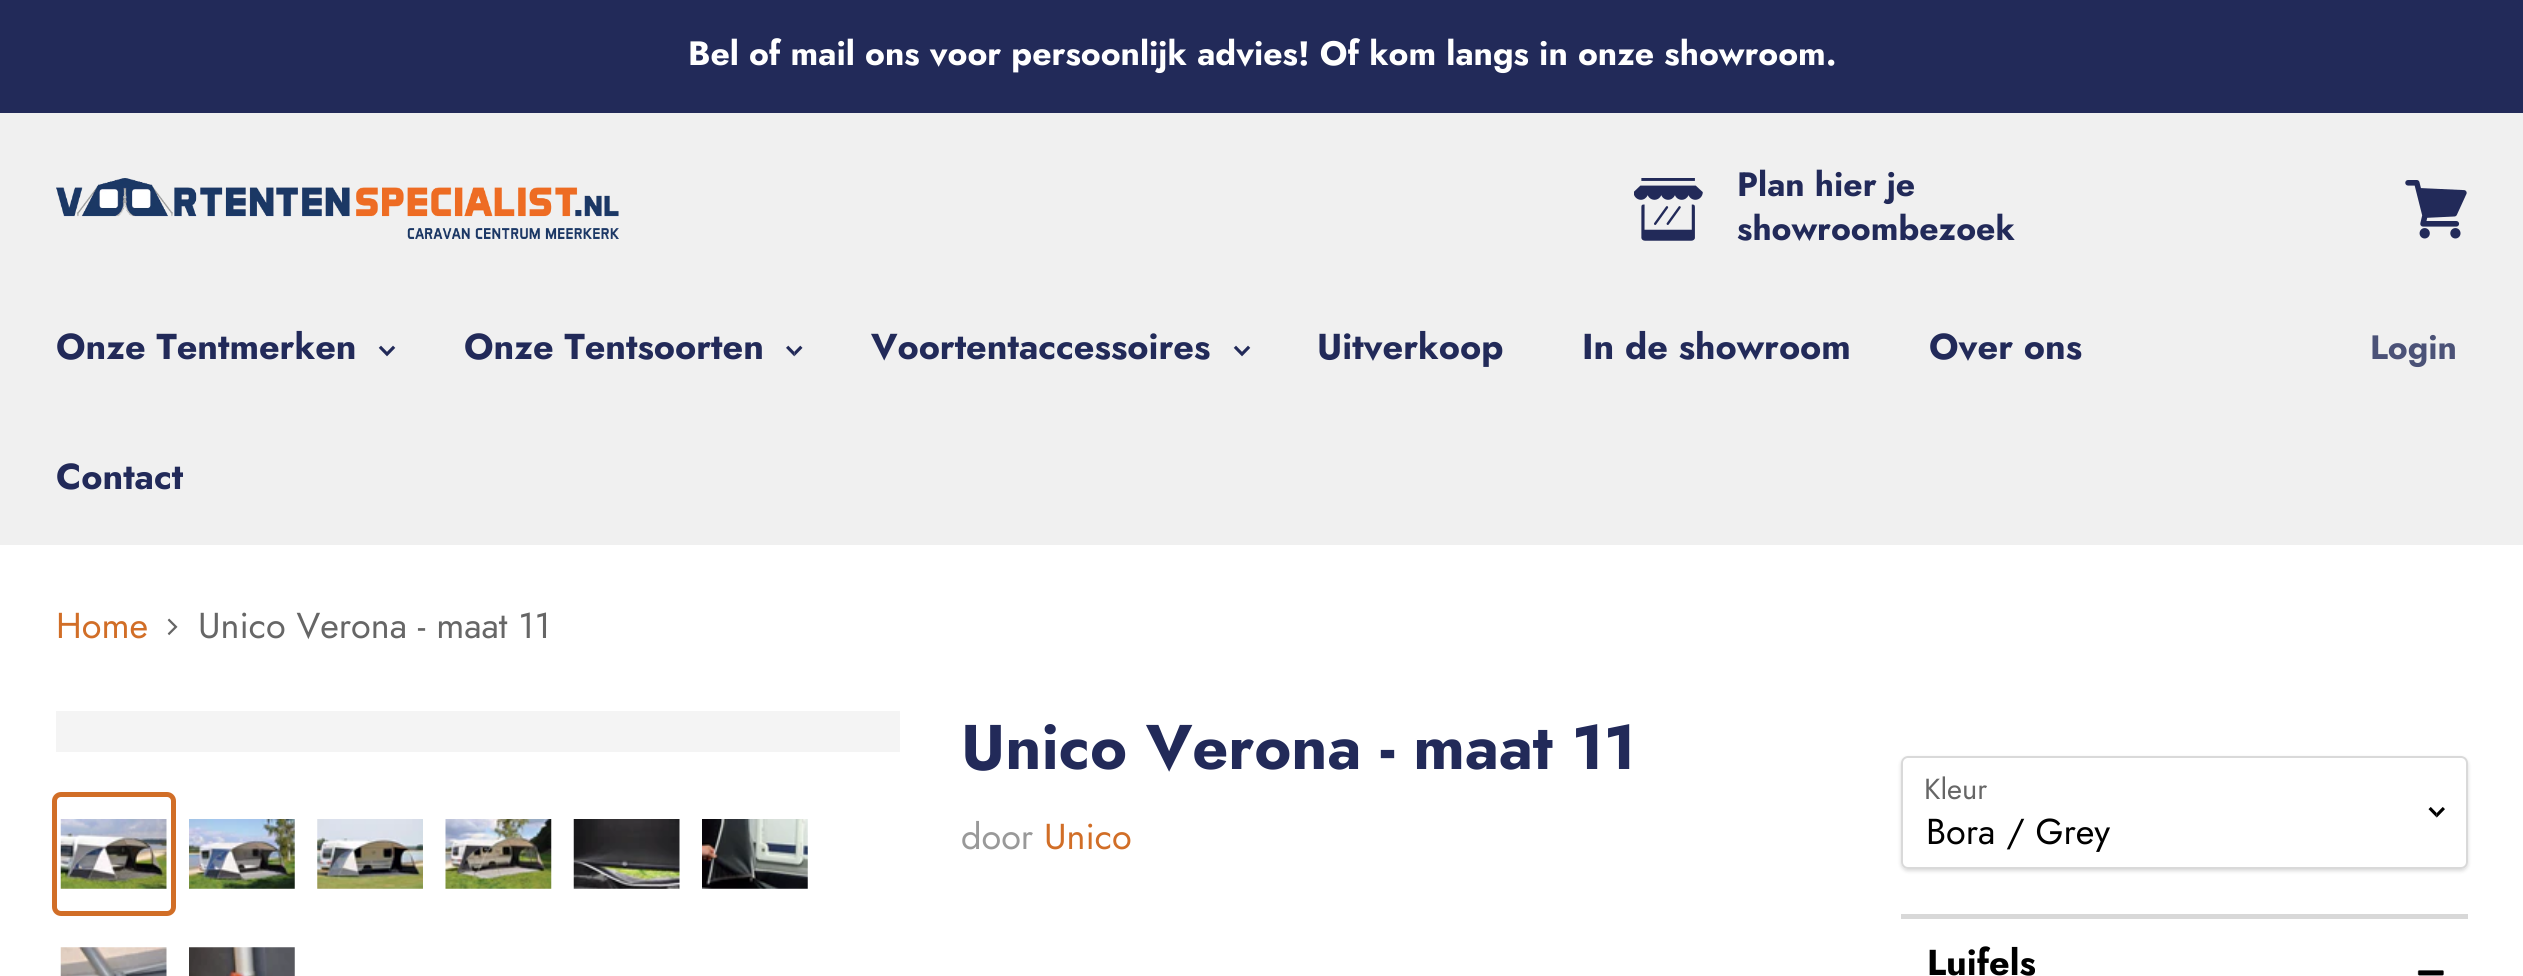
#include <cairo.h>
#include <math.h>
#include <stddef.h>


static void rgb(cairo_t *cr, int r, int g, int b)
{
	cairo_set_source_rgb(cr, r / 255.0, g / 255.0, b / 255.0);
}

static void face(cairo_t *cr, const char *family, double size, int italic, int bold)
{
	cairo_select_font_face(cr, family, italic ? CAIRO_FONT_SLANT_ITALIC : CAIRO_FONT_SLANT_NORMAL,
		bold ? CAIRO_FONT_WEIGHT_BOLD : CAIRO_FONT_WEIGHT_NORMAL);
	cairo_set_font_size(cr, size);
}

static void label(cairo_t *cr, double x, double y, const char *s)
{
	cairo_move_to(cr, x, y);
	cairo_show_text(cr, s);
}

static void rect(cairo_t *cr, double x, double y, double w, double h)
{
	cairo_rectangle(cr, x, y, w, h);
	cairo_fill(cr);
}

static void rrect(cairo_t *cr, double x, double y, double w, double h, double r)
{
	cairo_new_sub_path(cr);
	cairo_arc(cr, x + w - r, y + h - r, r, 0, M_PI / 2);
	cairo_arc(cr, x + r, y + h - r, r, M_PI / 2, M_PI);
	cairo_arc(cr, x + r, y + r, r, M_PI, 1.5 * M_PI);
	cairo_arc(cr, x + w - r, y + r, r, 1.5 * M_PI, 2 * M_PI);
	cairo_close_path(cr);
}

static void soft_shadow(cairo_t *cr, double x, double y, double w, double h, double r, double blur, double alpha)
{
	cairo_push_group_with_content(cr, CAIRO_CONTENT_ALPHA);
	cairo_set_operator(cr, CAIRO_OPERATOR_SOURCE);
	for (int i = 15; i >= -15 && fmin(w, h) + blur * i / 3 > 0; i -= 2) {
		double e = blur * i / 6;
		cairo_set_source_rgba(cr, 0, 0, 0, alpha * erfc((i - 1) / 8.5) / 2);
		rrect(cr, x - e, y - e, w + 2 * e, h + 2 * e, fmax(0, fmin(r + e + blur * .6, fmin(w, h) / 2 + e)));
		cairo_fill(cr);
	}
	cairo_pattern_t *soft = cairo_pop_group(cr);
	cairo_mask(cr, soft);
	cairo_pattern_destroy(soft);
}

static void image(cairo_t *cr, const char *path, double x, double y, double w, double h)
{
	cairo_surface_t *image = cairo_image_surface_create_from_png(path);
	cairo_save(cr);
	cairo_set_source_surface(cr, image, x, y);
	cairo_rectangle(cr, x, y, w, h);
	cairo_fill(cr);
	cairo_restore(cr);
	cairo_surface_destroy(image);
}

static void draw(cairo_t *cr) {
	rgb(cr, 255, 255, 255);
	cairo_paint(cr);
	rgb(cr, 240, 240, 240);
	rect(cr, 0, 113, 2523, 432);
	rgb(cr, 34, 42, 89);
	rect(cr, 0, 0, 2523, 113);
	face(cr, "Jost", 33.75, 0, 1);
	rgb(cr, 255, 255, 255);
	label(cr, 688, 65, "Bel of mail ons voor persoonlijk advies! Of kom langs in onze showroom.");
	image(cr, "image0.png", 56, 178, 563, 61);
	image(cr, "image1.png", 1634, 178, 69, 63);
	rgb(cr, 34, 42, 89);
	label(cr, 1737, 196, "Plan hier je");
	label(cr, 1737, 240, "showroombezoek");
	image(cr, "image2.png", 2405, 180, 62, 59);
	face(cr, "Jost", 36, 0, 1);
	label(cr, 56, 359, "Onze Tentmerken");
	image(cr, "image3.png", 378, 345, 18, 12);
	label(cr, 464, 359, "Onze Tentsoorten");
	image(cr, "image4.png", 786, 345, 17, 12);
	label(cr, 871, 359, "Voortentaccessoires");
	image(cr, "image3.png", 1233, 345, 18, 12);
	label(cr, 1317, 359, "Uitverkoop");
	label(cr, 1582, 359, "In de showroom");
	label(cr, 1929, 359, "Over ons");
	label(cr, 56, 489, "Contact");
	face(cr, "Jost", 33.75, 0, 1);
	rgb(cr, 75, 82, 119);
	label(cr, 2370, 359, "Login");
	face(cr, "Jost", 36, 0, 0);
	rgb(cr, 209, 110, 39);
	label(cr, 56, 638, "Home");
	image(cr, "image5.png", 167, 618, 11, 18);
	rgb(cr, 102, 102, 102);
	label(cr, 198, 638, "Unico Verona - maat 11");
	rgb(cr, 244, 244, 244);
	rect(cr, 56, 711, 844, 41);
	rrect(cr, 54.5, 794.5, 119, 119, 6.5);
	rgb(cr, 209, 110, 39);
	cairo_set_line_width(cr, 5);
	cairo_stroke(cr);
	image(cr, "image6.png", 60, 819, 107, 70);
	image(cr, "image7.png", 189, 819, 106, 70);
	image(cr, "image8.png", 317, 819, 106, 70);
	image(cr, "image9.png", 445, 819, 107, 70);
	image(cr, "image10.png", 573, 819, 107, 70);
	image(cr, "image11.png", 702, 819, 106, 70);
	image(cr, "image12.png", 60, 947, 107, 29);
	image(cr, "image13.png", 189, 947, 106, 29);
	face(cr, "Jost", 63, 0, 1);
	rgb(cr, 34, 42, 89);
	label(cr, 961, 769, "Unico Verona - maat 11");
	face(cr, "Jost", 36, 0, 0);
	rgb(cr, 153, 153, 153);
	label(cr, 961, 849, "door");
	rgb(cr, 209, 110, 39);
	label(cr, 1044, 849, "Unico");
	rgb(cr, 216, 216, 216);
	rect(cr, 1901, 914, 567, 5);
	cairo_save(cr);
	cairo_set_fill_rule(cr, CAIRO_FILL_RULE_EVEN_ODD);
	cairo_new_path(cr);
	cairo_move_to(cr, 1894, 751);
	cairo_line_to(cr, 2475, 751);
	cairo_line_to(cr, 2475, 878);
	cairo_line_to(cr, 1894, 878);
	cairo_close_path(cr);
	cairo_move_to(cr, 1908, 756);
	cairo_line_to(cr, 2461, 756);
	cairo_curve_to(cr, 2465, 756, 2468, 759, 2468, 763);
	cairo_line_to(cr, 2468, 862);
	cairo_curve_to(cr, 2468, 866, 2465, 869, 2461, 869);
	cairo_line_to(cr, 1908, 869);
	cairo_curve_to(cr, 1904, 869, 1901, 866, 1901, 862);
	cairo_line_to(cr, 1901, 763);
	cairo_curve_to(cr, 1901, 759, 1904, 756, 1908, 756);
	cairo_close_path(cr);
	cairo_clip(cr);
	rgb(cr, 0, 0, 0);
	soft_shadow(cr, 1901, 758, 567, 113, 7, 2, 0.15);
	cairo_restore(cr);
	rrect(cr, 1902, 757, 565, 111, 6);
	cairo_set_source_rgba(cr, 0.498, 0.498, 0.498, 0.3);
	cairo_set_line_width(cr, 2);
	cairo_stroke(cr);
	face(cr, "Jost", 29, 0, 0);
	rgb(cr, 102, 102, 102);
	label(cr, 1924, 799, "Kleur");
	image(cr, "image14.png", 2428, 807, 17, 11);
	face(cr, "Jost", 36, 0, 0);
	rgb(cr, 0, 0, 0);
	label(cr, 1926, 844, "Bora / Grey");
	face(cr, "Jost", 36, 0, 1);
	label(cr, 1927, 975, "Luifels");
	image(cr, "image15.png", 2417, 970, 27, 6);
}

int main(void) {
	cairo_surface_t *surface = cairo_image_surface_create(CAIRO_FORMAT_RGB24, 2523, 976);
	cairo_t *cr = cairo_create(surface);
	cairo_font_options_t *options = cairo_font_options_create();
	cairo_font_options_set_hint_metrics(options, CAIRO_HINT_METRICS_OFF);
	cairo_font_options_set_hint_style(options, CAIRO_HINT_STYLE_NONE);
	cairo_set_font_options(cr, options);
	cairo_set_miter_limit(cr, 4);
	draw(cr);
	cairo_surface_write_to_png(surface, "render.png");
	cairo_font_options_destroy(options);
	cairo_destroy(cr);
	cairo_surface_destroy(surface);
	return 0;
}
